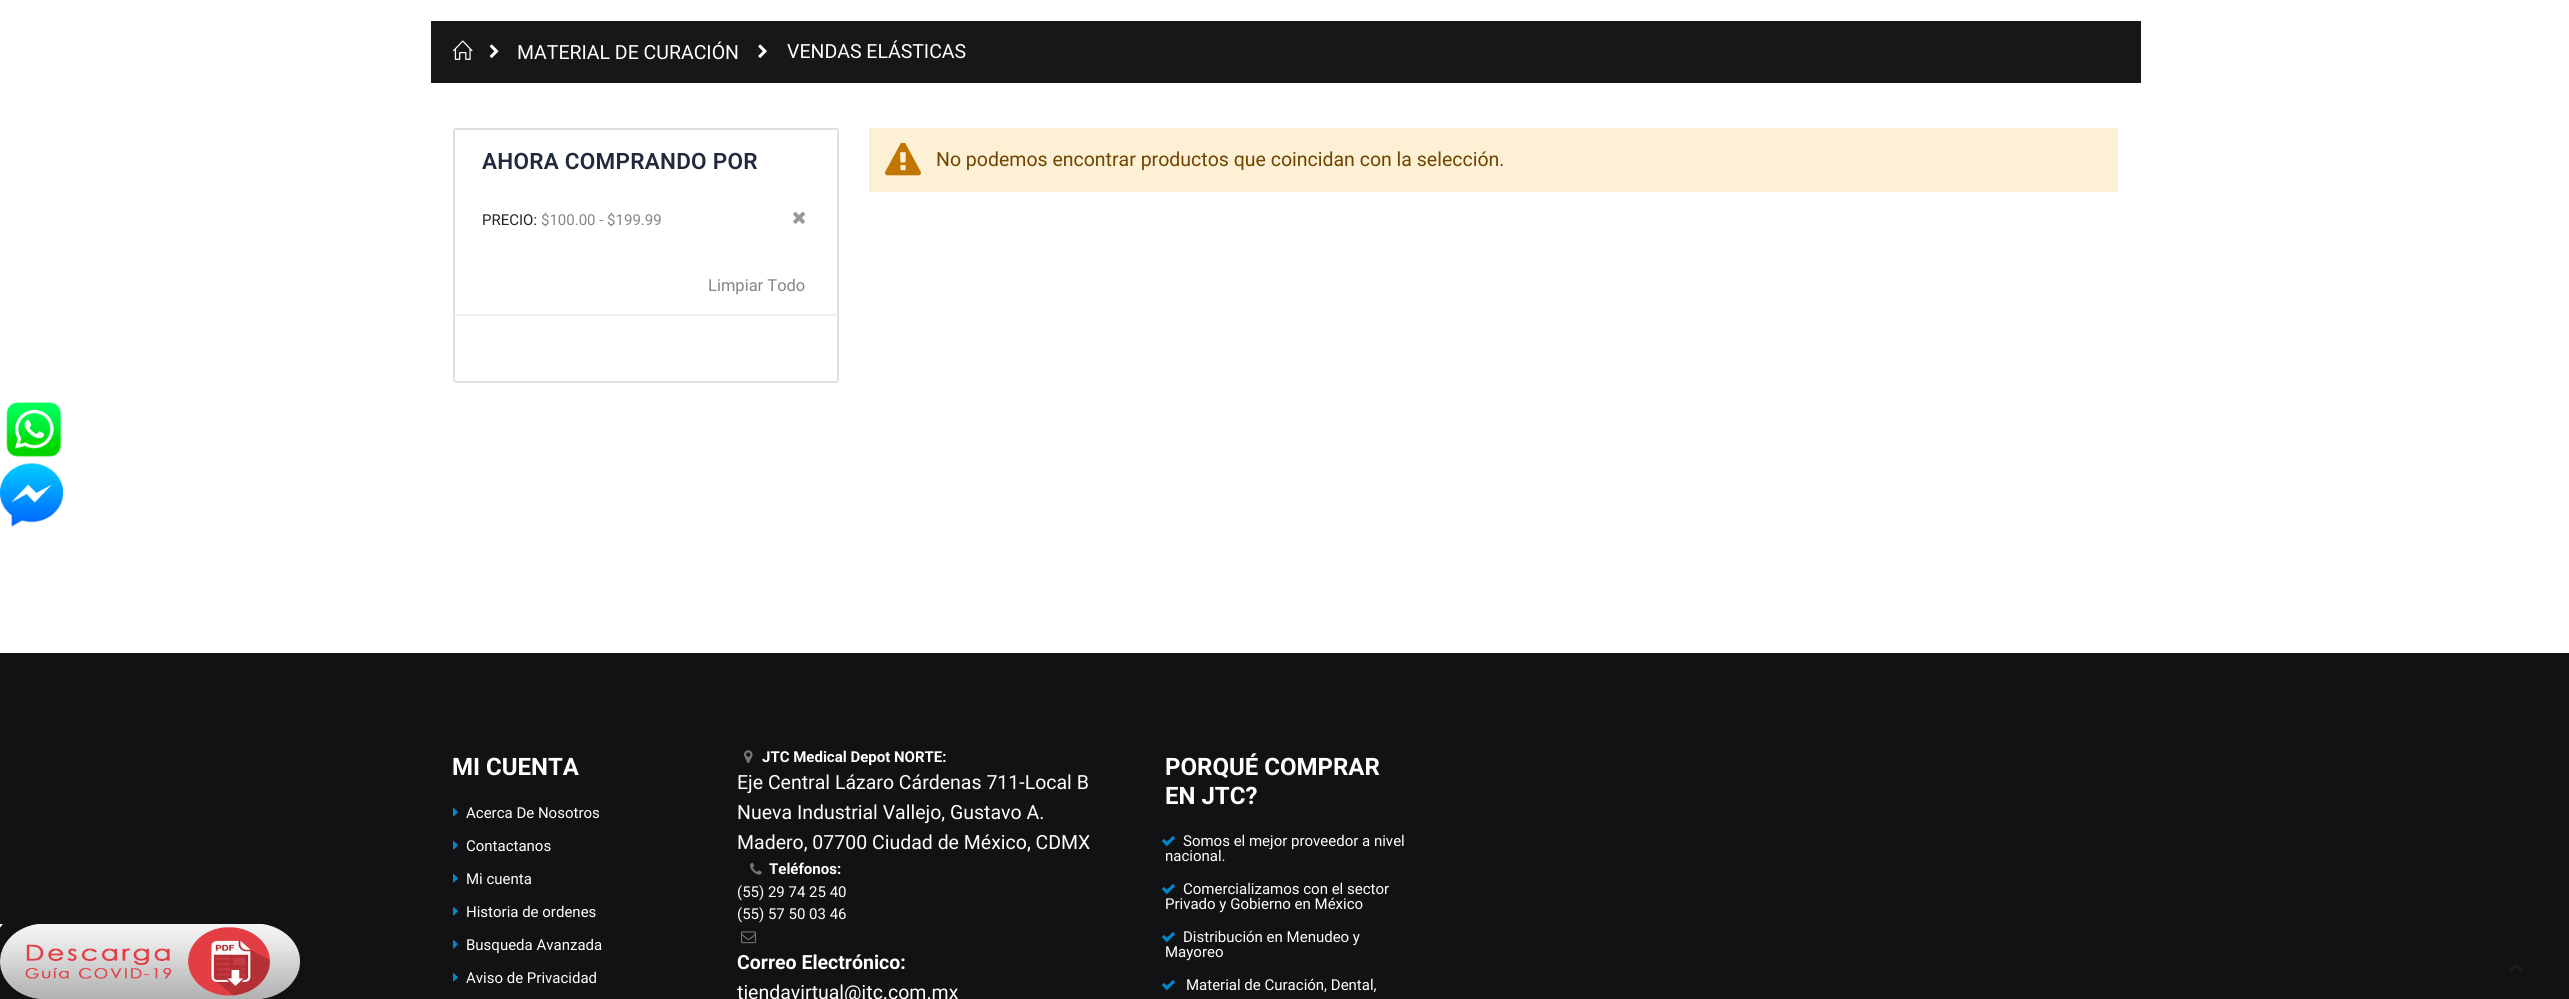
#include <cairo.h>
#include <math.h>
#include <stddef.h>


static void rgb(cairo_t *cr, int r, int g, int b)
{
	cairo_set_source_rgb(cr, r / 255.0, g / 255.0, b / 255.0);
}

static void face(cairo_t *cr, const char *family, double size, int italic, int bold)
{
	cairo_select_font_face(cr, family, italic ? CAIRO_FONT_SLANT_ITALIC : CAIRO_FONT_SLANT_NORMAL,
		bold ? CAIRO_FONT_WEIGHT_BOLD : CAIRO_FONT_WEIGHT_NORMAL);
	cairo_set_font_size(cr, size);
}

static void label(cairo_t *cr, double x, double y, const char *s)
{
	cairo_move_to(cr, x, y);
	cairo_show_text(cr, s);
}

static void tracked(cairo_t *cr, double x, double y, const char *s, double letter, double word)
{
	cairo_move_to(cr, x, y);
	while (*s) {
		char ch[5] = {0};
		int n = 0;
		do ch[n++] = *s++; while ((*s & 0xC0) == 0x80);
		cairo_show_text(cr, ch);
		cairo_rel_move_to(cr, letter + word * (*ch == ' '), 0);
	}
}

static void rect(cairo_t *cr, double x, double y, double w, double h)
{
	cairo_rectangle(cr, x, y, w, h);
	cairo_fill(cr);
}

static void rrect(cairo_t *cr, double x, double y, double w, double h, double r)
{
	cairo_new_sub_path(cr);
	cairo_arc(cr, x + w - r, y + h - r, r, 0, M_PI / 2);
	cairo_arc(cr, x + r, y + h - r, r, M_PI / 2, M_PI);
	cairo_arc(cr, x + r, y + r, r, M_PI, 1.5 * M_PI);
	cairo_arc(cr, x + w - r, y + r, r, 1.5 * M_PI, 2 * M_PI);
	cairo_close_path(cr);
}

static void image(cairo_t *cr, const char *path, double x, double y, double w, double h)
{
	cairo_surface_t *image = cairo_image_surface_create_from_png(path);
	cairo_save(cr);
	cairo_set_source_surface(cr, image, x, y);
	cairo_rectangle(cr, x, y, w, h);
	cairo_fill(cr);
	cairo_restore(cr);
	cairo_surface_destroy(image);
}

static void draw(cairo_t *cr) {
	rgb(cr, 255, 255, 255);
	cairo_paint(cr);
	rgb(cr, 23, 23, 23);
	rect(cr, 431, 21, 1710, 62);
	image(cr, "image0.png", 453, 40, 20, 20);
	image(cr, "image1.png", 489, 44, 10, 14);
	face(cr, "Roboto", 19.5, 0, 0);
	rgb(cr, 255, 255, 255);
	label(cr, 517, 59, "MATERIAL DE CURACIÓN");
	image(cr, "image2.png", 758, 44, 9, 14);
	label(cr, 787, 58, "VENDAS ELÁSTICAS");
	rrect(cr, 454, 129, 384, 253, 2);
	rgb(cr, 218, 226, 230);
	cairo_stroke(cr);
	face(cr, "Roboto SemiBold", 22.5, 0, 0);
	rgb(cr, 33, 41, 60);
	tracked(cr, 482, 169, "AHORA COMPRANDO POR", 0.25, 0);
	face(cr, "Roboto", 15, 0, 0);
	rgb(cr, 33, 37, 41);
	label(cr, 482, 225, "PRECIO:");
	rgb(cr, 133, 133, 133);
	label(cr, 541, 225, "$100.00 - $199.99");
	image(cr, "image3.png", 793, 211, 12, 13);
	rgb(cr, 239, 239, 239);
	rect(cr, 453, 314, 383, 2);
	face(cr, "Roboto", 16.5, 0, 0);
	rgb(cr, 133, 133, 133);
	label(cr, 708, 291, "Limpiar Todo");
	rgb(cr, 253, 240, 213);
	rect(cr, 869, 128, 1249, 64);
	image(cr, "image4.png", 885, 143, 36, 33);
	face(cr, "Roboto", 19.5, 0, 0);
	rgb(cr, 111, 68, 0);
	label(cr, 936, 166, "No podemos encontrar productos que coincidan con la selección.");
	image(cr, "image5.png", 6, 402, 55, 55);
	image(cr, "image6.png", 0, 463, 63, 64);
	rgb(cr, 18, 18, 20);
	rect(cr, 0, 653, 2569, 346);
	image(cr, "image7.png", 0, 924, 300, 75);
	face(cr, "Roboto", 24, 0, 1);
	rgb(cr, 255, 255, 255);
	label(cr, 452, 775, "MI CUENTA");
	image(cr, "image8.png", 453, 808, 5, 9);
	face(cr, "Roboto", 15, 0, 0);
	label(cr, 466, 818, "Acerca De Nosotros");
	image(cr, "image8.png", 453, 841, 5, 9);
	label(cr, 466, 851, "Contactanos");
	image(cr, "image8.png", 453, 874, 5, 9);
	label(cr, 466, 884, "Mi cuenta");
	image(cr, "image8.png", 453, 907, 5, 9);
	label(cr, 466, 917, "Historia de ordenes");
	image(cr, "image8.png", 453, 940, 5, 9);
	label(cr, 466, 950, "Busqueda Avanzada");
	image(cr, "image8.png", 453, 973, 5, 9);
	label(cr, 466, 983, "Aviso de Privacidad");
	image(cr, "image9.png", 744, 750, 9, 14);
	face(cr, "Roboto", 15, 0, 1);
	label(cr, 762, 762, "JTC Medical Depot NORTE:");
	face(cr, "Roboto", 19.5, 0, 0);
	label(cr, 737, 789, "Eje Central Lázaro Cárdenas 711-Local B");
	label(cr, 737, 819, "Nueva Industrial Vallejo, Gustavo A.");
	label(cr, 737, 849, "Madero, 07700 Ciudad de México, CDMX");
	image(cr, "image10.png", 750, 862, 12, 13);
	face(cr, "Roboto", 15, 0, 1);
	label(cr, 769, 874, "Teléfonos:");
	face(cr, "Roboto", 15, 0, 0);
	label(cr, 737, 897, "(55) 29 74 25 40");
	label(cr, 737, 919, "(55) 57 50 03 46");
	image(cr, "image11.png", 741, 931, 15, 13);
	face(cr, "Roboto", 19.5, 0, 1);
	label(cr, 737, 969, "Correo Electrónico:");
	face(cr, "Roboto", 19.5, 0, 0);
	label(cr, 737, 999, "tiendavirtual@jtc.com.mx");
	face(cr, "Roboto", 24, 0, 1);
	label(cr, 1165, 775, "PORQUÉ COMPRAR");
	label(cr, 1165, 804, "EN JTC?");
	image(cr, "image12.png", 1162, 836, 13, 10);
	face(cr, "Roboto", 15, 0, 0);
	label(cr, 1183, 846, "Somos el mejor proveedor a nivel");
	label(cr, 1165, 861, "nacional.");
	image(cr, "image12.png", 1162, 884, 13, 10);
	label(cr, 1183, 894, "Comercializamos con el sector");
	label(cr, 1165, 909, "Privado y Gobierno en México");
	image(cr, "image12.png", 1162, 932, 13, 10);
	label(cr, 1183, 942, "Distribución en Menudeo y");
	label(cr, 1165, 957, "Mayoreo");
	image(cr, "image12.png", 1162, 980, 13, 10);
	label(cr, 1186, 990, "Material de Curación, Dental,");
	image(cr, "image13.png", 2510, 964, 13, 8);
}

int main(void) {
	cairo_surface_t *surface = cairo_image_surface_create(CAIRO_FORMAT_RGB24, 2569, 999);
	cairo_t *cr = cairo_create(surface);
	cairo_font_options_t *options = cairo_font_options_create();
	cairo_font_options_set_hint_metrics(options, CAIRO_HINT_METRICS_OFF);
	cairo_font_options_set_hint_style(options, CAIRO_HINT_STYLE_NONE);
	cairo_set_font_options(cr, options);
	cairo_set_miter_limit(cr, 4);
	draw(cr);
	cairo_surface_write_to_png(surface, "render.png");
	cairo_font_options_destroy(options);
	cairo_destroy(cr);
	cairo_surface_destroy(surface);
	return 0;
}
